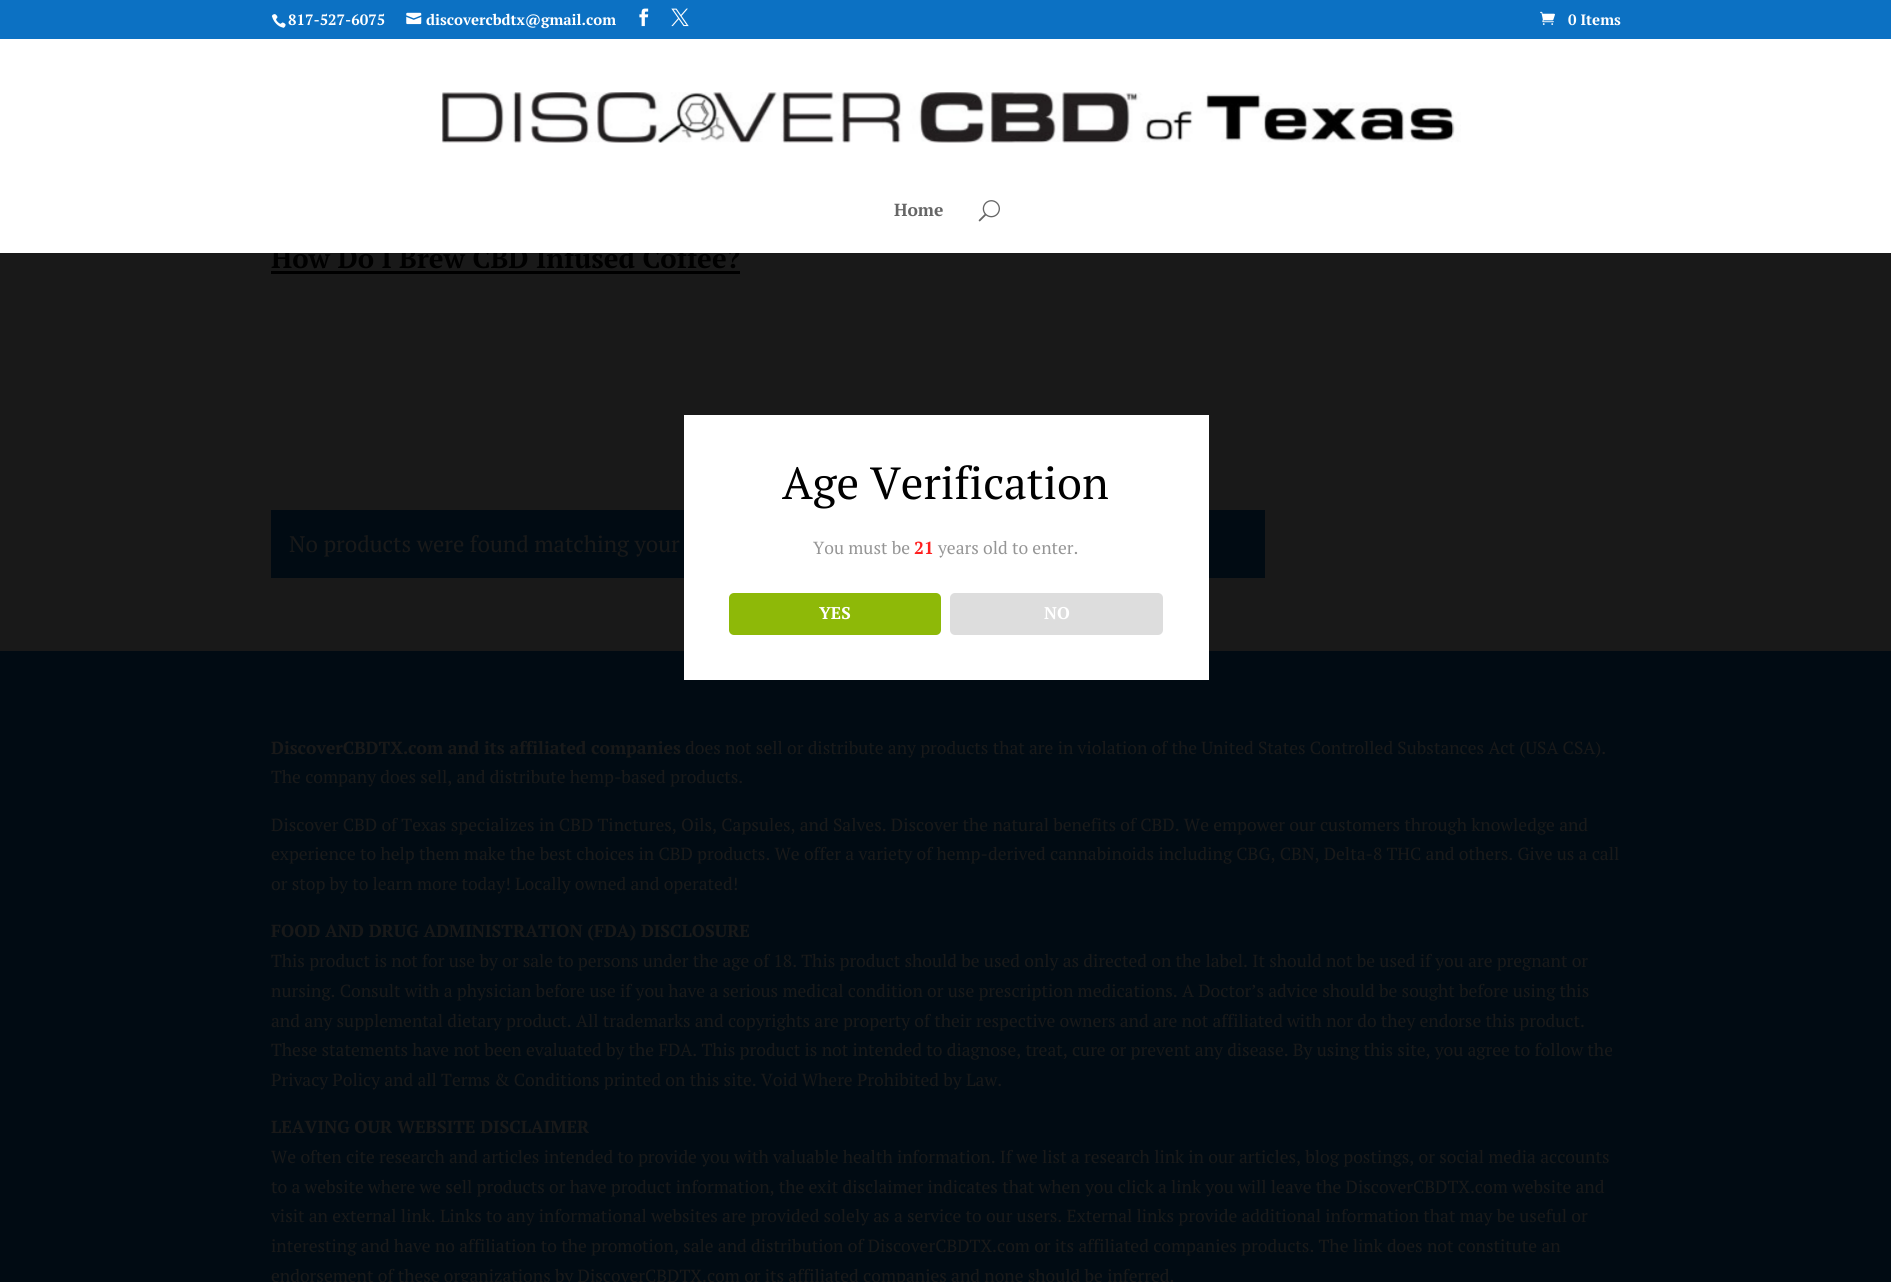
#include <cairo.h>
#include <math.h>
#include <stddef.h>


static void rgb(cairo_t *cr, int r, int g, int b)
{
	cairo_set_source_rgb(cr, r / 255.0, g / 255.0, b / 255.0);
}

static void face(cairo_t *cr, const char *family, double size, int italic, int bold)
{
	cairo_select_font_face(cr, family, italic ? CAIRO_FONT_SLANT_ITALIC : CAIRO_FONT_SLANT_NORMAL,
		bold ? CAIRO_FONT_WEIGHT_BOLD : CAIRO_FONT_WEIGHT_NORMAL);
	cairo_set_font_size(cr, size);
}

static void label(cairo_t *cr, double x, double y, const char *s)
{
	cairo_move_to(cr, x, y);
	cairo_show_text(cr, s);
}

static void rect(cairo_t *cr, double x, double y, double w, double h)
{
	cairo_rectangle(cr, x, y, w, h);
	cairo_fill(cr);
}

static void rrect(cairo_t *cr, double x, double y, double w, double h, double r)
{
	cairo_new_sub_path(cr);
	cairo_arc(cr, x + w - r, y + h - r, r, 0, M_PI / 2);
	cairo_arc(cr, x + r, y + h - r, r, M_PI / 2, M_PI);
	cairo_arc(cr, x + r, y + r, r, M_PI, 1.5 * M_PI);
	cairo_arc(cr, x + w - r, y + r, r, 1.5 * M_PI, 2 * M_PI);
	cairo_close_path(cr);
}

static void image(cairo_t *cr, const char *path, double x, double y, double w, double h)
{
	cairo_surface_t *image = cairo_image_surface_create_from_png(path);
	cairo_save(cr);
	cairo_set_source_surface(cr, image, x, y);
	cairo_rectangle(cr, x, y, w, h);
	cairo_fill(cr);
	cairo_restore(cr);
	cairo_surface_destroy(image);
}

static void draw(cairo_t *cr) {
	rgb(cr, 25, 25, 25);
	cairo_paint(cr);
	rgb(cr, 12, 113, 195);
	rect(cr, 0, 0, 1891, 39);
	image(cr, "image0.png", 271, 14, 15, 14);
	face(cr, "PT Serif", 15, 0, 1);
	rgb(cr, 255, 255, 255);
	label(cr, 288, 25, "817-527-6075");
	image(cr, "image1.png", 406, 12, 16, 13);
	label(cr, 426, 25, "discovercbdtx@gmail.com");
	image(cr, "image2.png", 639, 8, 10, 19);
	image(cr, "image3.png", 671, 8, 18, 19);
	image(cr, "image4.png", 1540, 11, 15, 14);
	label(cr, 1568, 25, "0 Items");
	face(cr, "PT Serif", 27.5, 0, 1);
	rgb(cr, 0, 0, 0);
	label(cr, 271, 268, "How Do I Brew CBD Infused Coffee?");
	rgb(cr, 255, 255, 255);
	rect(cr, 0, 39, 1891, 214);
	image(cr, "image5.png", 441, 92, 1020, 51);
	face(cr, "PT Serif", 17.5, 0, 1);
	rgb(cr, 102, 102, 102);
	label(cr, 894, 216, "Home");
	image(cr, "image6.png", 978, 200, 22, 22);
	rgb(cr, 0, 0, 0);
	rect(cr, 271, 271, 469, 3);
	rgb(cr, 1, 11, 19);
	rect(cr, 271, 510, 994, 68);
	face(cr, "PT Serif", 22.5, 0, 0);
	rgb(cr, 25, 25, 25);
	label(cr, 289, 552, "No products were found matching your");
	rgb(cr, 1, 11, 19);
	rect(cr, 0, 651, 1891, 631);
	face(cr, "PT Serif", 17.5, 0, 1);
	rgb(cr, 25, 25, 25);
	label(cr, 271, 754, "DiscoverCBDTX.com and its affiliated companies");
	face(cr, "PT Serif", 17.5, 0, 0);
	label(cr, 685, 754, "does not sell or distribute any products that are in violation of the United States Controlled Substances Act (USA CSA).");
	label(cr, 271, 783, "The company does sell, and distribute hemp-based products.");
	label(cr, 271, 831, "Discover CBD of Texas specializes in CBD Tinctures, Oils, Capsules, and Salves. Discover the natural benefits of CBD. We empower our customers through knowledge and");
	label(cr, 271, 860, "experience to help them make the best choices in CBD products. We offer a variety of hemp-derived cannabinoids including CBG, CBN, Delta-8 THC and others. Give us a call");
	label(cr, 271, 890, "or stop by to learn more today! Locally owned and operated!");
	face(cr, "PT Serif", 17.5, 0, 1);
	label(cr, 271, 937, "FOOD AND DRUG ADMINISTRATION (FDA) DISCLOSURE");
	face(cr, "PT Serif", 17.5, 0, 0);
	label(cr, 271, 967, "This product is not for use by or sale to persons under the age of 18. This product should be used only as directed on the label. It should not be used if you are pregnant or");
	label(cr, 271, 997, "nursing. Consult with a physician before use if you have a serious medical condition or use prescription medications. A Doctor’s advice should be sought before using this");
	label(cr, 271, 1027, "and any supplemental dietary product. All trademarks and copyrights are property of their respective owners and are not affiliated with nor do they endorse this product.");
	label(cr, 271, 1056, "These statements have not been evaluated by the FDA. This product is not intended to diagnose, treat, cure or prevent any disease. By using this site, you agree to follow the");
	label(cr, 271, 1086, "Privacy Policy and all Terms & Conditions printed on this site. Void Where Prohibited by Law.");
	face(cr, "PT Serif", 17.5, 0, 1);
	label(cr, 271, 1133, "LEAVING OUR WEBSITE DISCLAIMER");
	face(cr, "PT Serif", 17.5, 0, 0);
	label(cr, 271, 1163, "We often cite research and articles intended to provide you with valuable health information. If we list a research link in our articles, blog postings, or social media accounts");
	label(cr, 271, 1193, "to a website where we sell products or have product information, the exit disclaimer indicates that when you click a link you will leave the DiscoverCBDTX.com website and");
	label(cr, 271, 1222, "visit an external link. Links to any informational websites are provided solely as a service to our users. External links provide additional information that may be useful or");
	label(cr, 271, 1252, "interesting and have no affiliation to the promotion, sale and distribution of DiscoverCBDTX.com or its affiliated companies products. The link does not constitute an");
	label(cr, 271, 1282, "endorsement of these organizations by DiscoverCBDTX.com or its affiliated companies and none should be inferred.");
	rgb(cr, 255, 255, 255);
	rect(cr, 684, 415, 525, 265);
	face(cr, "PT Serif", 45, 0, 0);
	rgb(cr, 0, 0, 0);
	label(cr, 782, 499, "Age Verification");
	face(cr, "PT Serif", 17.5, 0, 0);
	rgb(cr, 149, 149, 149);
	label(cr, 813, 554, "You must be");
	face(cr, "PT Serif", 17.5, 0, 1);
	rgb(cr, 255, 31, 31);
	label(cr, 914, 554, "21");
	face(cr, "PT Serif", 17.5, 0, 0);
	rgb(cr, 149, 149, 149);
	label(cr, 938, 554, "years old to enter.");
	rgb(cr, 142, 185, 8);
	rrect(cr, 729, 593, 212, 42, 5);
	cairo_fill(cr);
	face(cr, "PT Serif", 17, 0, 1);
	rgb(cr, 255, 255, 255);
	label(cr, 819, 619, "YES");
	rgb(cr, 221, 221, 221);
	rrect(cr, 950, 593, 213, 42, 5);
	cairo_fill(cr);
	rgb(cr, 255, 255, 255);
	label(cr, 1044, 619, "NO");
}

int main(void) {
	cairo_surface_t *surface = cairo_image_surface_create(CAIRO_FORMAT_RGB24, 1891, 1282);
	cairo_t *cr = cairo_create(surface);
	cairo_font_options_t *options = cairo_font_options_create();
	cairo_font_options_set_hint_metrics(options, CAIRO_HINT_METRICS_OFF);
	cairo_font_options_set_hint_style(options, CAIRO_HINT_STYLE_NONE);
	cairo_set_font_options(cr, options);
	cairo_set_miter_limit(cr, 4);
	draw(cr);
	cairo_surface_write_to_png(surface, "render.png");
	cairo_font_options_destroy(options);
	cairo_destroy(cr);
	cairo_surface_destroy(surface);
	return 0;
}
